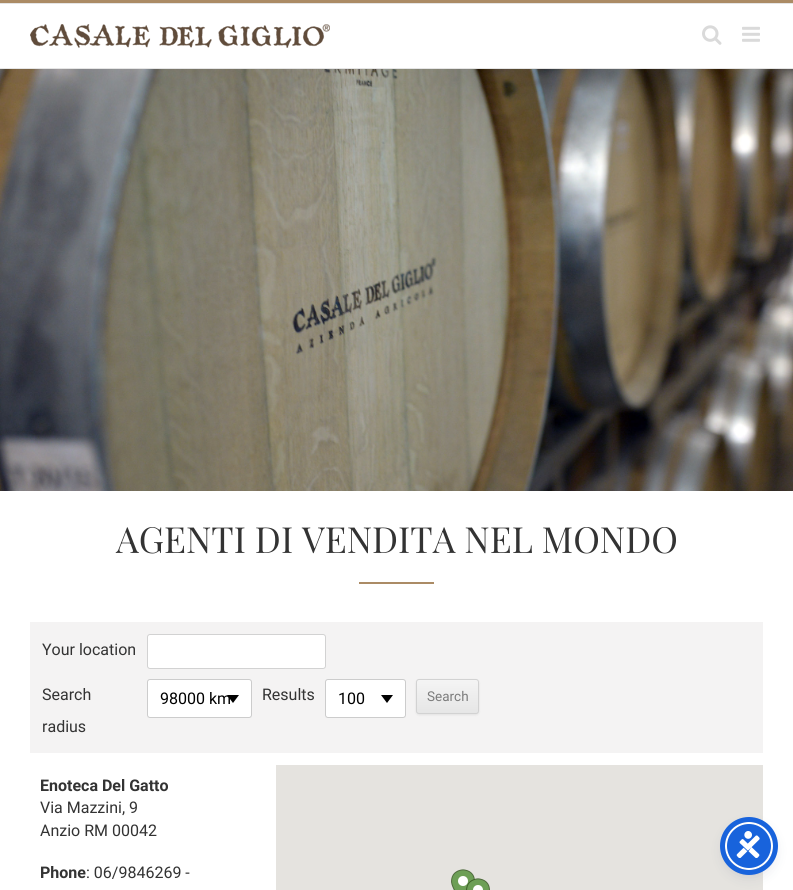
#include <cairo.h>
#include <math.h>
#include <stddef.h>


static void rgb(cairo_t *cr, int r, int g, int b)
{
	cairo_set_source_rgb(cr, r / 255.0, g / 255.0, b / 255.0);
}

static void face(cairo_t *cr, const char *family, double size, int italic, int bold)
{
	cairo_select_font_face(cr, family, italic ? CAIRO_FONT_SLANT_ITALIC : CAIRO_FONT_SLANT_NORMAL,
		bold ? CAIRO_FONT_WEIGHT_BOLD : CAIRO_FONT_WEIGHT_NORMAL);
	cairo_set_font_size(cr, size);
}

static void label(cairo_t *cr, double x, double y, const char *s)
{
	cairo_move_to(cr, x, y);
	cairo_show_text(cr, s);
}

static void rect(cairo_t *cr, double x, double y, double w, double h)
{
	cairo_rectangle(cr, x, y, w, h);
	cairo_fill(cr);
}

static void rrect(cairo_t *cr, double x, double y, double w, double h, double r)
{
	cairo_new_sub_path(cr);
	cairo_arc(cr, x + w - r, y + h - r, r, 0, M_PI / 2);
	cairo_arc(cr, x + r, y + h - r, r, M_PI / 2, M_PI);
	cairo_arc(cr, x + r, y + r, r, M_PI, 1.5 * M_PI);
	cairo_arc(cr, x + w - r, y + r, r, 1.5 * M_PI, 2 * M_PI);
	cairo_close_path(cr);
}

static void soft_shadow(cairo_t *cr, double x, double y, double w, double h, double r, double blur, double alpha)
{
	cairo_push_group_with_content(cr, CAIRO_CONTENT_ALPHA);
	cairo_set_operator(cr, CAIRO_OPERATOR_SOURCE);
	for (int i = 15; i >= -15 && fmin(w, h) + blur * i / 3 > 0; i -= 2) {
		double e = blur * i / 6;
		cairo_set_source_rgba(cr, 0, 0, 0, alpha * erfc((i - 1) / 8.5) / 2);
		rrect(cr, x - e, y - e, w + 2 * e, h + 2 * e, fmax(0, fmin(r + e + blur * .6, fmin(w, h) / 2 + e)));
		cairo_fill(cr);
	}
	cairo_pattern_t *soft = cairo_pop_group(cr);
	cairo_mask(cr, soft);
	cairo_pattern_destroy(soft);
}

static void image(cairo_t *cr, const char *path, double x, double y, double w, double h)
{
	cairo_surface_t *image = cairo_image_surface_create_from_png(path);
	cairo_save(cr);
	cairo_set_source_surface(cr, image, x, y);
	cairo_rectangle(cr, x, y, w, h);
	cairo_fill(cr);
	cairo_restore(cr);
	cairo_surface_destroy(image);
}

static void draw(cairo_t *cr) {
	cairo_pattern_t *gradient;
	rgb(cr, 255, 255, 255);
	cairo_paint(cr);
	rgb(cr, 171, 139, 101);
	rect(cr, 0, 0, 793, 3);
	rgb(cr, 229, 229, 229);
	rect(cr, 0, 3, 793, 1);
	rect(cr, 0, 68, 793, 1);
	image(cr, "image0.png", 30, 24, 300, 24);
	image(cr, "image1.png", 702, 25, 20, 20);
	image(cr, "image2.png", 742, 26, 18, 16);
	image(cr, "image3.png", 0, 69, 793, 422);
	face(cr, "Playfair Display", 36, 0, 0);
	rgb(cr, 51, 51, 51);
	label(cr, 116, 553, "AGENTI DI VENDITA NEL MONDO");
	rgb(cr, 171, 139, 101);
	rect(cr, 359, 582, 75, 2);
	rgb(cr, 244, 243, 243);
	rect(cr, 30, 622, 733, 131);
	face(cr, "Roboto", 16, 0, 0);
	rgb(cr, 51, 51, 51);
	label(cr, 42, 655, "Your location");
	rgb(cr, 255, 255, 255);
	rrect(cr, 147.5, 634.5, 178, 34, 2.5);
	cairo_fill_preserve(cr);
	rgb(cr, 210, 210, 210);
	cairo_set_line_width(cr, 1);
	cairo_stroke(cr);
	rgb(cr, 51, 51, 51);
	label(cr, 42, 700, "Search");
	label(cr, 42, 732, "radius");
	rgb(cr, 255, 255, 255);
	rrect(cr, 147.5, 679.5, 104, 38, 2.5);
	cairo_fill_preserve(cr);
	rgb(cr, 204, 204, 204);
	cairo_stroke(cr);
	rgb(cr, 0, 0, 0);
	label(cr, 160, 704, "98000 km");
	cairo_new_path(cr);
	cairo_move_to(cr, 227, 695);
	cairo_line_to(cr, 239, 695);
	cairo_line_to(cr, 233, 703);
	cairo_close_path(cr);
	cairo_fill(cr);
	rgb(cr, 226, 225, 225);
	cairo_new_path(cr);
	cairo_move_to(cr, 252, 716);
	cairo_line_to(cr, 251, 717);
	cairo_line_to(cr, 251.5, 717.5);
	cairo_close_path(cr);
	cairo_fill(cr);
	rgb(cr, 225, 225, 225);
	cairo_new_path(cr);
	cairo_move_to(cr, 147, 716);
	cairo_line_to(cr, 148, 717);
	cairo_line_to(cr, 147.5, 717.5);
	cairo_close_path(cr);
	cairo_fill(cr);
	rgb(cr, 51, 51, 51);
	label(cr, 262, 700, "Results");
	rgb(cr, 255, 255, 255);
	rrect(cr, 325.5, 679.5, 80, 38, 2.5);
	cairo_fill_preserve(cr);
	rgb(cr, 204, 204, 204);
	cairo_stroke(cr);
	rgb(cr, 0, 0, 0);
	label(cr, 338, 704, "100");
	cairo_new_path(cr);
	cairo_move_to(cr, 381, 695);
	cairo_line_to(cr, 393, 695);
	cairo_line_to(cr, 387, 703);
	cairo_close_path(cr);
	cairo_fill(cr);
	rgb(cr, 226, 225, 225);
	cairo_new_path(cr);
	cairo_move_to(cr, 406, 716);
	cairo_line_to(cr, 405, 717);
	cairo_line_to(cr, 405.5, 717.5);
	cairo_close_path(cr);
	cairo_fill(cr);
	rgb(cr, 225, 225, 225);
	cairo_new_path(cr);
	cairo_move_to(cr, 325, 716);
	cairo_line_to(cr, 326, 717);
	cairo_line_to(cr, 325.5, 717.5);
	cairo_close_path(cr);
	cairo_fill(cr);
	rgb(cr, 64, 64, 64);
	soft_shadow(cr, 416, 680, 63, 35, 3, 1, 0.1);
	cairo_save(cr);
	rrect(cr, 416, 679, 63, 35, 3);
	cairo_clip(cr);
	gradient = cairo_pattern_create_linear(448, 680, 448, 713);
	cairo_pattern_add_color_stop_rgba(gradient, 0, 0.957, 0.957, 0.957, 1);
	cairo_pattern_add_color_stop_rgba(gradient, 1, 0.902, 0.902, 0.902, 1);
	cairo_set_source(cr, gradient);
	cairo_pattern_destroy(gradient);
	rect(cr, 416, 680, 63, 33);
	cairo_restore(cr);
	rrect(cr, 416.5, 679.5, 62, 34, 2.5);
	rgb(cr, 210, 210, 210);
	cairo_stroke(cr);
	face(cr, "Roboto", 13.5, 0, 0);
	rgb(cr, 124, 124, 124);
	label(cr, 427, 701, "Search");
	face(cr, "Roboto", 16, 0, 1);
	rgb(cr, 51, 51, 51);
	label(cr, 40, 791, "Enoteca Del Gatto");
	face(cr, "Roboto", 16, 0, 0);
	label(cr, 40, 813, "Via Mazzini, 9");
	label(cr, 40, 836, "Anzio RM 00042");
	face(cr, "Roboto", 16, 0, 1);
	label(cr, 40, 878, "Phone");
	face(cr, "Roboto", 16, 0, 0);
	label(cr, 86, 878, ": 06/9846269 -");
	rgb(cr, 229, 227, 223);
	rect(cr, 276, 765, 487, 125);
	image(cr, "image4.png", 451, 869, 24, 21);
	image(cr, "image5.png", 466, 878, 24, 12);
	rgb(cr, 93, 100, 148);
	soft_shadow(cr, 725, 824, 48, 48, 24, 2, 0.2);
	rgb(cr, 37, 44, 97);
	soft_shadow(cr, 725, 827, 48, 48, 24, 7.5, 0.15);
	rgb(cr, 24, 99, 220);
	cairo_arc(cr, 749, 846, 23, 0, 2 * M_PI);
	cairo_fill_preserve(cr);
	rgb(cr, 255, 255, 255);
	cairo_set_line_width(cr, 2);
	cairo_stroke(cr);
	cairo_arc(cr, 749, 846, 26.5, 0, 2 * M_PI);
	rgb(cr, 24, 99, 220);
	cairo_set_line_width(cr, 5);
	cairo_stroke(cr);
	image(cr, "image6.png", 736, 831, 24, 27);
}

int main(void) {
	cairo_surface_t *surface = cairo_image_surface_create(CAIRO_FORMAT_RGB24, 793, 890);
	cairo_t *cr = cairo_create(surface);
	cairo_font_options_t *options = cairo_font_options_create();
	cairo_font_options_set_hint_metrics(options, CAIRO_HINT_METRICS_OFF);
	cairo_font_options_set_hint_style(options, CAIRO_HINT_STYLE_NONE);
	cairo_set_font_options(cr, options);
	cairo_set_miter_limit(cr, 4);
	draw(cr);
	cairo_surface_write_to_png(surface, "render.png");
	cairo_font_options_destroy(options);
	cairo_destroy(cr);
	cairo_surface_destroy(surface);
	return 0;
}
